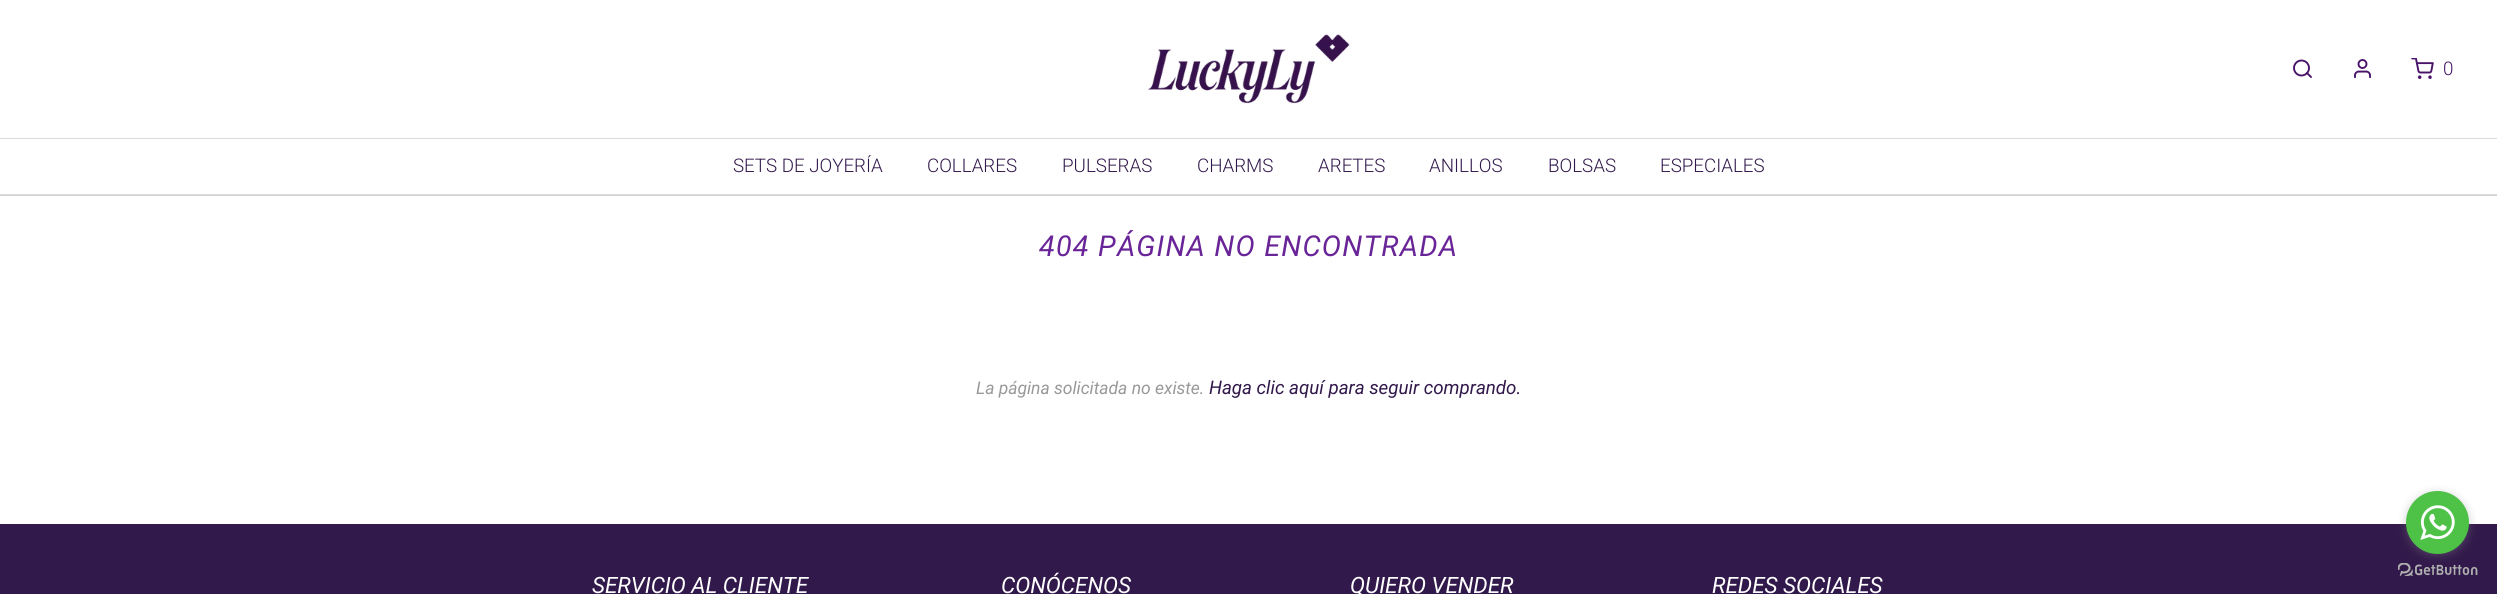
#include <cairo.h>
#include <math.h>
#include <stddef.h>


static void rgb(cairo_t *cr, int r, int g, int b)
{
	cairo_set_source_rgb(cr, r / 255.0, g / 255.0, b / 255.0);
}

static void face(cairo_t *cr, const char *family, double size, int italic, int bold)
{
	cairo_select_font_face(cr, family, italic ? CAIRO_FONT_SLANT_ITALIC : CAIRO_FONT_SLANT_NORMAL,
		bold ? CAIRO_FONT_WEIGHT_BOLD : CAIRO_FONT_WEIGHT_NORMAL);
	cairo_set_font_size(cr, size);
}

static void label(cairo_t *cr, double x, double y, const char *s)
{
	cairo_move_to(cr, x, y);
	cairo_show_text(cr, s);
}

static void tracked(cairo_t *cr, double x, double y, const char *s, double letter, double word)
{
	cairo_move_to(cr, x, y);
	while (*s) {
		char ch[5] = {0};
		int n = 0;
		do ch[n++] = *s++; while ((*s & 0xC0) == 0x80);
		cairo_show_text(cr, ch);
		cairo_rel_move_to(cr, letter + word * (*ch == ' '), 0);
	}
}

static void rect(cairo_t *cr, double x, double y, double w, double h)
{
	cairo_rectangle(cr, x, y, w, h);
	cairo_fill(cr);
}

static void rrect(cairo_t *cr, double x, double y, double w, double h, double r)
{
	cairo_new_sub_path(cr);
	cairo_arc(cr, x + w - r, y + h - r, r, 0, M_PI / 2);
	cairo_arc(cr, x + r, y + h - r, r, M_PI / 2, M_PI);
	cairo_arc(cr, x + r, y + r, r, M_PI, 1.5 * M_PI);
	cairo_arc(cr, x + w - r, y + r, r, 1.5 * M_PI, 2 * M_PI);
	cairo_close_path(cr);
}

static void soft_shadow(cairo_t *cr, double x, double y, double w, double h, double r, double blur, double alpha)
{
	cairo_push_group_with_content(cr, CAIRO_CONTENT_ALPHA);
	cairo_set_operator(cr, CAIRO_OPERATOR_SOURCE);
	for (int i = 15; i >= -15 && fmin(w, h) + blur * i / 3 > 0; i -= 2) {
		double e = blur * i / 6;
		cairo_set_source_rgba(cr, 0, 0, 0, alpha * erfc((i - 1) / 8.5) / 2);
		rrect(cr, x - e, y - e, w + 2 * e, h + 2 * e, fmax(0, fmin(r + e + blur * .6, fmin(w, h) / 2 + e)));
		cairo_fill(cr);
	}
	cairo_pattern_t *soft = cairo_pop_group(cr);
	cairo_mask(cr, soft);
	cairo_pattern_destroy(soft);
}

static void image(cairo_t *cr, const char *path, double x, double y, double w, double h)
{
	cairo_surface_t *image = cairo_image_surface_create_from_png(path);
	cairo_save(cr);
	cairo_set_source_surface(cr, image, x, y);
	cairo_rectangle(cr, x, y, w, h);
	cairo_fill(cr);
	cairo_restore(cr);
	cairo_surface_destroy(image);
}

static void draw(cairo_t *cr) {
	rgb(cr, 255, 255, 255);
	cairo_paint(cr);
	rgb(cr, 211, 211, 211);
	rect(cr, 0, 195, 2497, 1);
	image(cr, "image0.png", 1148, 34, 202, 70);
	cairo_arc(cr, 2301.5, 68, 7.5, 0, 2 * M_PI);
	rgb(cr, 72, 19, 105);
	cairo_set_line_width(cr, 1.9);
	cairo_stroke(cr);
	cairo_new_path(cr);
	cairo_move_to(cr, 2311, 77);
	cairo_line_to(cr, 2307, 73);
	cairo_set_line_cap(cr, CAIRO_LINE_CAP_ROUND);
	cairo_set_line_join(cr, CAIRO_LINE_JOIN_ROUND);
	cairo_stroke(cr);
	image(cr, "image1.png", 2354, 59, 17, 20);
	image(cr, "image2.png", 2411, 58, 23, 21);
	face(cr, "Roboto Light", 18.75, 0, 0);
	label(cr, 2443, 75, "0");
	rgb(cr, 219, 219, 219);
	rect(cr, 0, 138, 2497, 1);
	rect(cr, 0, 194, 2497, 1);
	rgb(cr, 50, 25, 75);
	label(cr, 733, 172, "SETS DE JOYERÍA");
	label(cr, 927, 172, "COLLARES");
	label(cr, 1062, 172, "PULSERAS");
	label(cr, 1197, 172, "CHARMS");
	label(cr, 1318, 172, "ARETES");
	label(cr, 1429, 172, "ANILLOS");
	label(cr, 1548, 172, "BOLSAS");
	label(cr, 1660, 172, "ESPECIALES");
	face(cr, "Roboto", 28.75, 1, 0);
	rgb(cr, 105, 37, 152);
	tracked(cr, 1039, 256, "404 PÁGINA NO ENCONTRADA", 1.25, 0);
	face(cr, "Roboto", 17.5, 1, 0);
	rgb(cr, 153, 153, 153);
	label(cr, 976, 394, "La página solicitada no existe.");
	face(cr, "Roboto", 18.75, 1, 0);
	rgb(cr, 50, 25, 75);
	label(cr, 1209, 394, "Haga clic aquí para seguir comprando.");
	rect(cr, 0, 524, 2497, 70);
	face(cr, "Roboto", 22.5, 1, 0);
	rgb(cr, 255, 255, 255);
	label(cr, 592, 593, "SERVICIO AL CLIENTE");
	label(cr, 1001, 593, "CONÓCENOS");
	label(cr, 1350, 593, "QUIERO VENDER");
	label(cr, 1712, 593, "REDES SOCIALES");
	image(cr, "image4.png", 2398, 563, 80, 13);
	rgb(cr, 136, 136, 136);
	soft_shadow(cr, 2406, 493, 63, 62, 31, 4.5, 0.4);
	rgb(cr, 77, 194, 71);
	cairo_arc(cr, 2437.5, 522.5, 31.5, 0, 2 * M_PI);
	cairo_fill(cr);
	image(cr, "image3.png", 2420, 505, 35, 35);
}

int main(void) {
	cairo_surface_t *surface = cairo_image_surface_create(CAIRO_FORMAT_RGB24, 2497, 594);
	cairo_t *cr = cairo_create(surface);
	cairo_font_options_t *options = cairo_font_options_create();
	cairo_font_options_set_hint_metrics(options, CAIRO_HINT_METRICS_OFF);
	cairo_font_options_set_hint_style(options, CAIRO_HINT_STYLE_NONE);
	cairo_set_font_options(cr, options);
	cairo_set_miter_limit(cr, 4);
	draw(cr);
	cairo_surface_write_to_png(surface, "render.png");
	cairo_font_options_destroy(options);
	cairo_destroy(cr);
	cairo_surface_destroy(surface);
	return 0;
}
